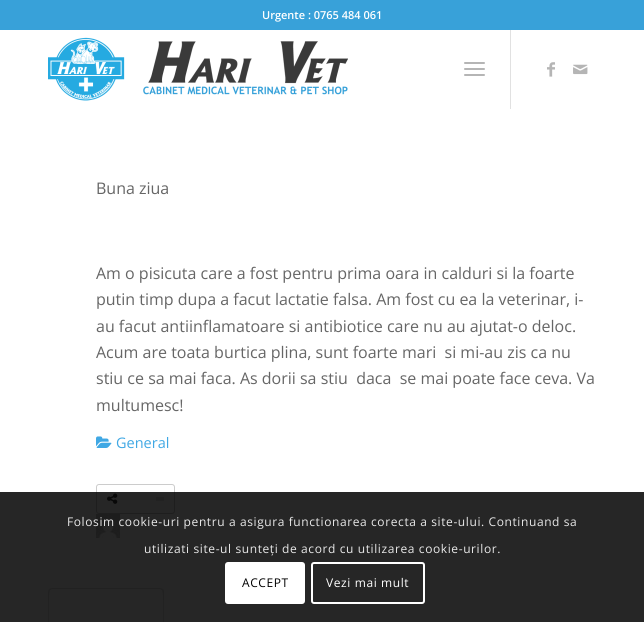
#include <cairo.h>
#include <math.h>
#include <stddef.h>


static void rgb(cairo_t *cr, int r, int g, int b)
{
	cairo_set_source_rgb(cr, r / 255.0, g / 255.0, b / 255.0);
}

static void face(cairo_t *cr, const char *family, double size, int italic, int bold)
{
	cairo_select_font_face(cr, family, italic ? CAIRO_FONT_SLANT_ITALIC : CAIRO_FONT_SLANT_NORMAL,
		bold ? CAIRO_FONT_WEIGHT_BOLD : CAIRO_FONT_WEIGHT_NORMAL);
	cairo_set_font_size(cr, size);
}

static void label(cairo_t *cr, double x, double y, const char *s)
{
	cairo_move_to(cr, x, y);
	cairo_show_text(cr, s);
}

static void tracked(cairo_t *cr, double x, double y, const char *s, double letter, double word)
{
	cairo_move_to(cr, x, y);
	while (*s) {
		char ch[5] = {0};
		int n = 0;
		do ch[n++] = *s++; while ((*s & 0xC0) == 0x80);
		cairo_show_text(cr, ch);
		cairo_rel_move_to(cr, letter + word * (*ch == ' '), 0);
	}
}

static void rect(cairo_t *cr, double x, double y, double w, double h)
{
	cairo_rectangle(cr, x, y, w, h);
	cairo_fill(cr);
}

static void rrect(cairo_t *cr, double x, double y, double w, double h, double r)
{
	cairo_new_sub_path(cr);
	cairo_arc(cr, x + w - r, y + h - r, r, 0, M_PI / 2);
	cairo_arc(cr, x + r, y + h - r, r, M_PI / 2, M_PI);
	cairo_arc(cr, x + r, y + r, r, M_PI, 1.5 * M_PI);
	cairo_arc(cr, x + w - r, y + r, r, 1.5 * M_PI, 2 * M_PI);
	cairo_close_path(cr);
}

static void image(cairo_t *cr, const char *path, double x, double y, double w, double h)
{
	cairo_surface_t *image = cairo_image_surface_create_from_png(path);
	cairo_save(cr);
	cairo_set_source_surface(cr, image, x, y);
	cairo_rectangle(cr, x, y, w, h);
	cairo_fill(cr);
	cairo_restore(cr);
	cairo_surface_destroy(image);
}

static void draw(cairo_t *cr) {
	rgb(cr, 255, 255, 255);
	cairo_paint(cr);
	rgb(cr, 225, 225, 225);
	rect(cr, 510, 29, 1, 80);
	rgb(cr, 56, 161, 217);
	rect(cr, 0, 0, 644, 30);
	face(cr, "Open Sans SemiBold", 11, 0, 0);
	rgb(cr, 255, 255, 255);
	label(cr, 262, 19, "Urgente : 0765 484 061");
	image(cr, "image0.png", 48, 37, 300, 64);
	rgb(cr, 181, 181, 181);
	rrect(cr, 464, 68, 21, 2, 1);
	cairo_fill(cr);
	rrect(cr, 464, 62, 21, 2, 1);
	cairo_fill(cr);
	rrect(cr, 464, 74, 21, 2, 1);
	cairo_fill(cr);
	image(cr, "image1.png", 547, 62, 8, 15);
	image(cr, "image2.png", 573, 64, 15, 11);
	face(cr, "Open Sans", 16, 0, 0);
	rgb(cr, 102, 102, 102);
	label(cr, 96, 194, "Buna ziua");
	label(cr, 96, 279, "Am o pisicuta care a fost pentru prima oara in calduri si la foarte");
	label(cr, 96, 305, "putin timp dupa a facut lactatie falsa. Am fost cu ea la veterinar, i-");
	label(cr, 96, 332, "au facut antiinflamatoare si antibiotice care nu au ajutat-o deloc.");
	label(cr, 96, 358, "Acum are toata burtica plina, sunt foarte mari  si mi-au zis ca nu");
	label(cr, 96, 384, "stiu ce sa mai faca. As dorii sa stiu  daca  se mai poate face ceva. Va");
	label(cr, 96, 411, "multumesc!");
	image(cr, "image3.png", 96, 436, 16, 12);
	face(cr, "Open Sans", 14.5, 0, 0);
	rgb(cr, 64, 168, 228);
	label(cr, 116, 448, "General");
	rrect(cr, 96.5, 484.5, 78, 29, 2.5);
	rgb(cr, 204, 204, 204);
	cairo_set_line_width(cr, 1);
	cairo_stroke(cr);
	image(cr, "image4.png", 107, 493, 11, 11);
	rgb(cr, 225, 225, 225);
	rect(cr, 156, 497, 8, 4);
	image(cr, "image5.png", 96, 514, 24, 24);
	rgb(cr, 221, 221, 221);
	cairo_new_path(cr);
	cairo_move_to(cr, 52, 588);
	cairo_line_to(cr, 49, 589);
	cairo_line_to(cr, 50, 590);
	cairo_line_to(cr, 52, 589);
	cairo_line_to(cr, 160, 589);
	cairo_line_to(cr, 162, 590);
	cairo_line_to(cr, 163, 589);
	cairo_line_to(cr, 160, 588);
	cairo_close_path(cr);
	cairo_fill(cr);
	cairo_new_path(cr);
	cairo_move_to(cr, 164, 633);
	cairo_line_to(cr, 164, 592);
	cairo_curve_to(cr, 164, 591, 164, 590, 163, 589);
	cairo_line_to(cr, 162, 590);
	cairo_curve_to(cr, 164, 592, 163, 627, 163, 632);
	cairo_close_path(cr);
	cairo_fill(cr);
	cairo_new_path(cr);
	cairo_move_to(cr, 48, 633);
	cairo_line_to(cr, 49, 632);
	cairo_curve_to(cr, 49, 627, 48, 592, 50, 590);
	cairo_line_to(cr, 49, 589);
	cairo_line_to(cr, 48, 592);
	cairo_close_path(cr);
	cairo_fill(cr);
	cairo_set_source_rgba(cr, 0, 0, 0, 0.85);
	rect(cr, 0, 492, 644, 130);
	face(cr, "Open Sans", 12, 0, 0);
	rgb(cr, 233, 233, 233);
	tracked(cr, 67, 526, "Folosim cookie-uri pentru a asigura functionarea corecta a site-ului. Continuand sa", 0.6, 0);
	tracked(cr, 144, 553, "utilizati site-ul sunteți de acord cu utilizarea cookie-urilor.", 0.6, 0);
	rgb(cr, 255, 255, 255);
	rrect(cr, 225, 562, 80, 42, 3);
	cairo_fill(cr);
	rgb(cr, 0, 0, 0);
	tracked(cr, 242, 587, "ACCEPT", 0.6, 0);
	rrect(cr, 312, 563, 112, 40, 2);
	rgb(cr, 255, 255, 255);
	cairo_set_line_width(cr, 2);
	cairo_stroke(cr);
	tracked(cr, 326, 587, "Vezi mai mult", 0.6, 0);
}

int main(void) {
	cairo_surface_t *surface = cairo_image_surface_create(CAIRO_FORMAT_RGB24, 644, 622);
	cairo_t *cr = cairo_create(surface);
	cairo_font_options_t *options = cairo_font_options_create();
	cairo_font_options_set_hint_metrics(options, CAIRO_HINT_METRICS_OFF);
	cairo_font_options_set_hint_style(options, CAIRO_HINT_STYLE_NONE);
	cairo_set_font_options(cr, options);
	cairo_set_miter_limit(cr, 4);
	draw(cr);
	cairo_surface_write_to_png(surface, "render.png");
	cairo_font_options_destroy(options);
	cairo_destroy(cr);
	cairo_surface_destroy(surface);
	return 0;
}
